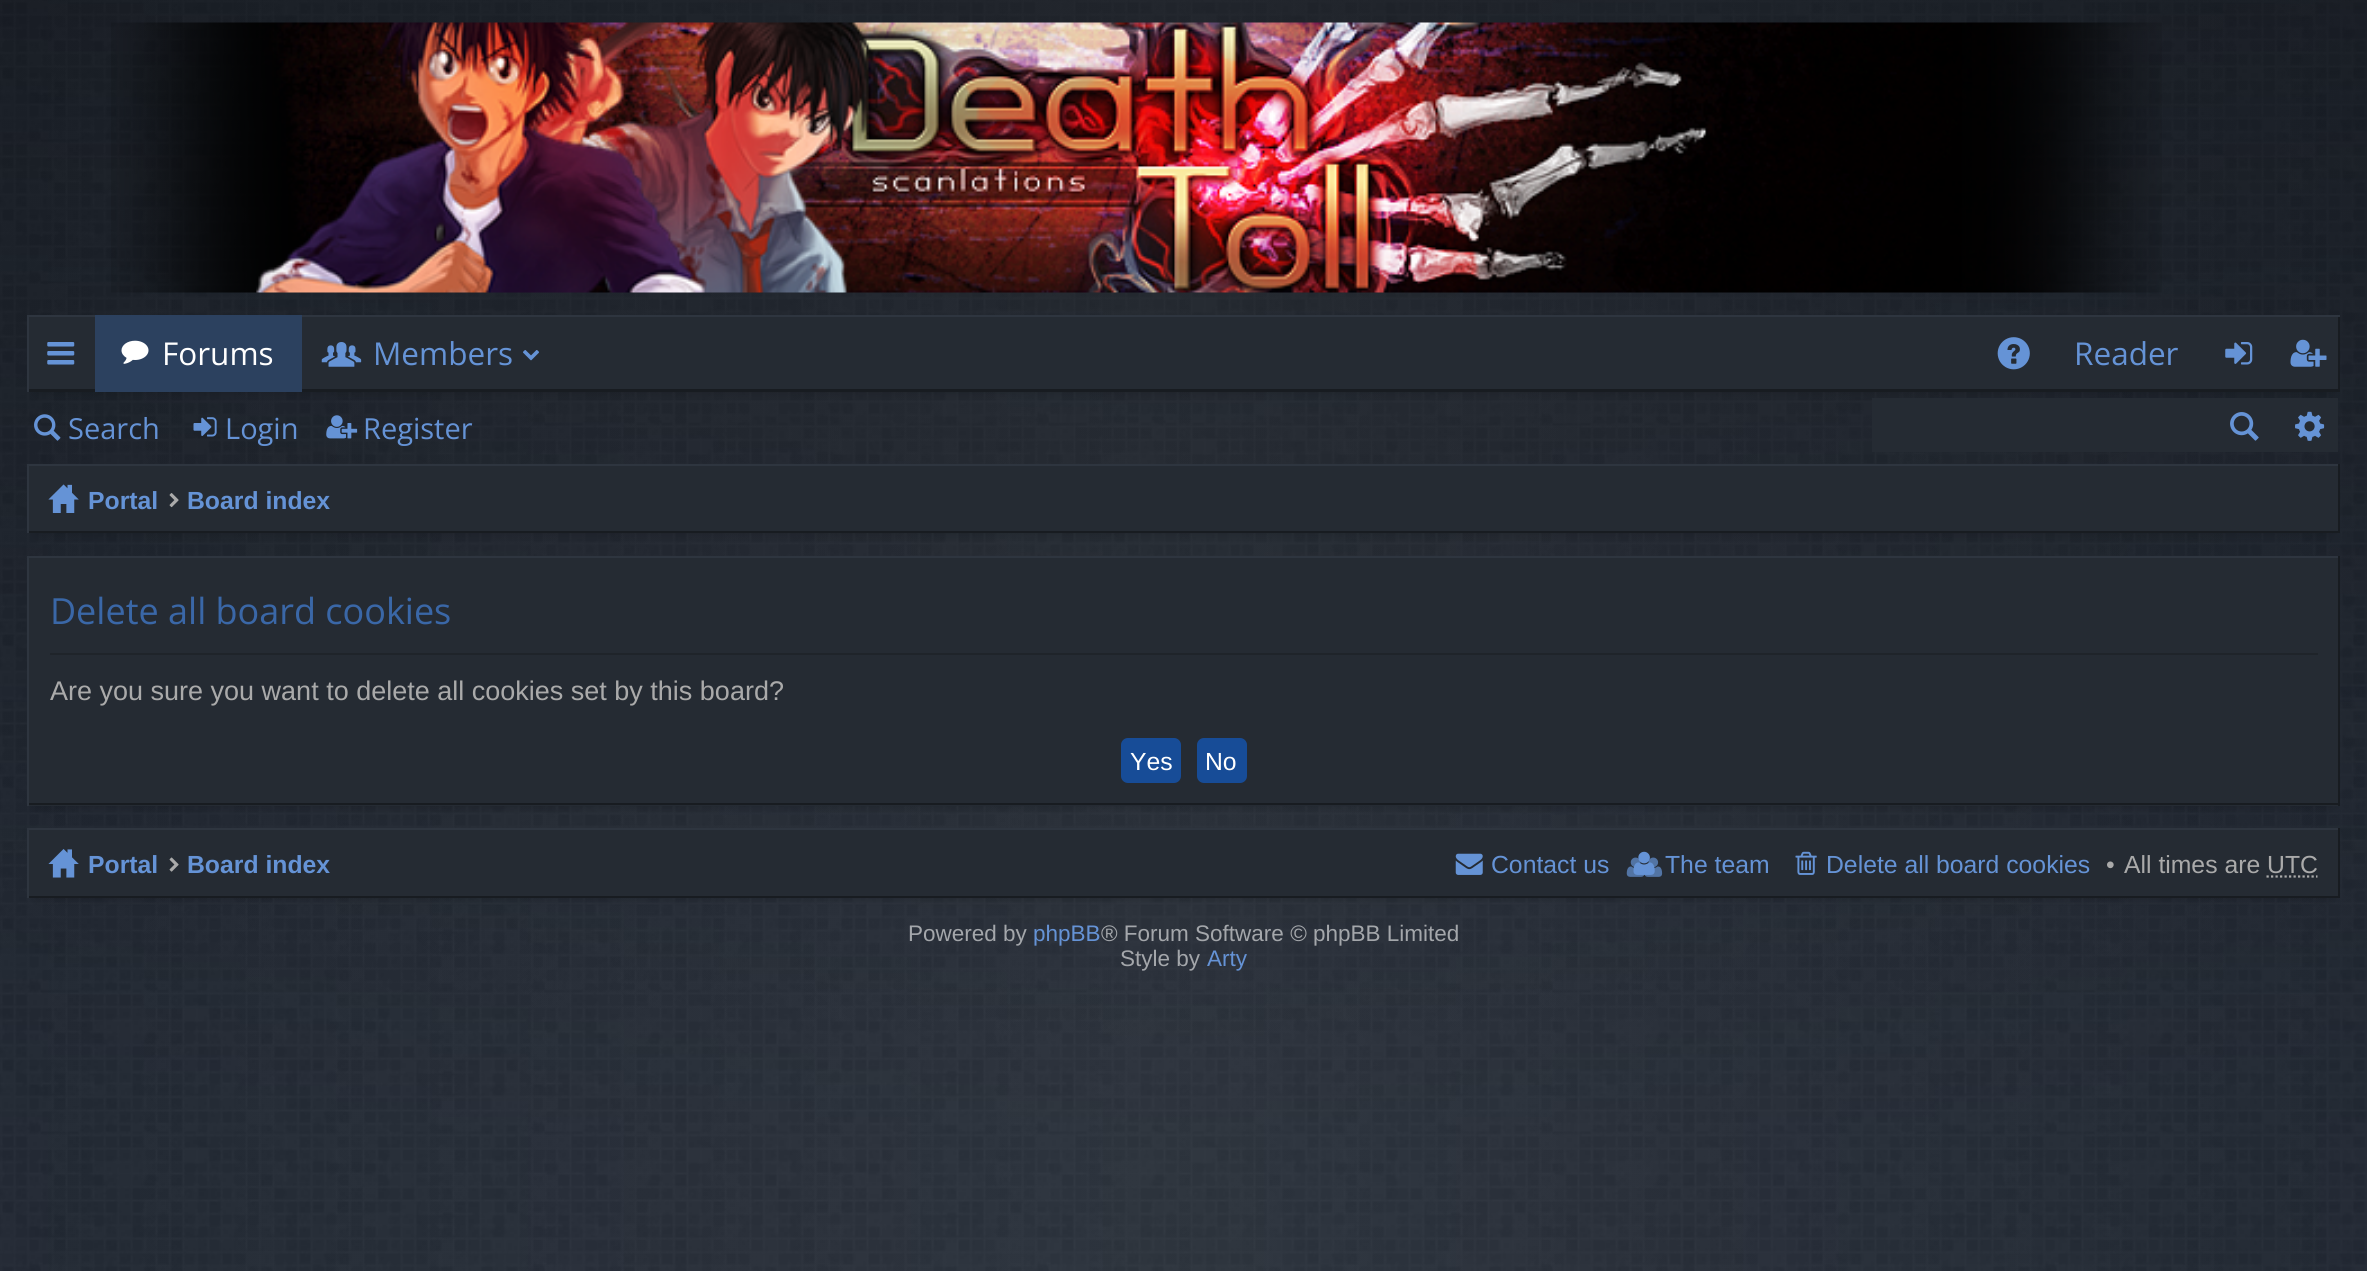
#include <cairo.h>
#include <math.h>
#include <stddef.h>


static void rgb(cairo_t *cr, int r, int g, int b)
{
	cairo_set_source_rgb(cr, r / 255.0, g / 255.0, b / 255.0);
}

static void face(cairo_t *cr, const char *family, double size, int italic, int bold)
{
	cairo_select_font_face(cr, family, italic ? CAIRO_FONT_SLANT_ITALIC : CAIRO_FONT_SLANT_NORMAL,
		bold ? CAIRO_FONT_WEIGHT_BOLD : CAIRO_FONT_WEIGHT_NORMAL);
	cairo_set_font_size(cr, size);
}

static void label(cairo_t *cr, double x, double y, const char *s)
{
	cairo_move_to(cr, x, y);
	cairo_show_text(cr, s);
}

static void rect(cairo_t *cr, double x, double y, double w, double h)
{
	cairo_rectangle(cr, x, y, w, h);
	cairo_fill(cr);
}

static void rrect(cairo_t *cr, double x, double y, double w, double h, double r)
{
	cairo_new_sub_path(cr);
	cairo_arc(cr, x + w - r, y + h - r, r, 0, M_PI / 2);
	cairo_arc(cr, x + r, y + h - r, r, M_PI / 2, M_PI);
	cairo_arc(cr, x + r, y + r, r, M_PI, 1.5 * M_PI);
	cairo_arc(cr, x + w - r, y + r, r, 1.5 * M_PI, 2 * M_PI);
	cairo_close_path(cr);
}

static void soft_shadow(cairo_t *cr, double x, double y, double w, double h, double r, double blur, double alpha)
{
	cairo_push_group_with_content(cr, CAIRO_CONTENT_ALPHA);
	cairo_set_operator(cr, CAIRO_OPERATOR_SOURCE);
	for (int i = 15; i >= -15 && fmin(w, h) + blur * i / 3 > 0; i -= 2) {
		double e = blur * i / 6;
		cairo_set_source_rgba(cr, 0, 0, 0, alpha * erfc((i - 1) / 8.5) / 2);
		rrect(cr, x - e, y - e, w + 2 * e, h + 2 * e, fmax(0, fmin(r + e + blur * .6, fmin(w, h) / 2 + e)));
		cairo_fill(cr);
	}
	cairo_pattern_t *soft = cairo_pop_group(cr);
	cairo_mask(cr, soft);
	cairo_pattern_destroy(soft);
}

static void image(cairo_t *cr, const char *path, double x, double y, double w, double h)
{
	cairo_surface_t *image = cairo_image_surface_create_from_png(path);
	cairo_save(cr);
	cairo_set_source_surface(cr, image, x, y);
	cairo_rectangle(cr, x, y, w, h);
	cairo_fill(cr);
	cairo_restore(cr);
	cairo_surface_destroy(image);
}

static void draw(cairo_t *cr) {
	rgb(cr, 28, 35, 46);
	cairo_paint(cr);
	image(cr, "image0.png", 0, 0, 2367, 1271);
	image(cr, "image1.png", 111, 22, 2051, 271);
	rgb(cr, 0, 0, 0);
	soft_shadow(cr, 38, 338, 2291, 54, 0, 5.5, 0.2);
	rgb(cr, 37, 43, 51);
	rect(cr, 29, 317, 2309, 72);
	cairo_save(cr);
	cairo_rectangle(cr, 27, 315, 2313, 77);
	cairo_clip(cr);
	rgb(cr, 24, 28, 33);
	cairo_set_fill_rule(cr, CAIRO_FILL_RULE_EVEN_ODD);
	cairo_new_path(cr);
	cairo_move_to(cr, -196, 92);
	cairo_line_to(cr, 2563, 92);
	cairo_line_to(cr, 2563, 614);
	cairo_line_to(cr, -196, 614);
	cairo_close_path(cr);
	cairo_move_to(cr, 25, 313);
	cairo_line_to(cr, 2338, 313);
	cairo_line_to(cr, 2338, 389);
	cairo_line_to(cr, 25, 389);
	cairo_close_path(cr);
	cairo_fill(cr);
	rgb(cr, 46, 53, 63);
	cairo_new_path(cr);
	cairo_move_to(cr, -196, 92);
	cairo_line_to(cr, 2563, 92);
	cairo_line_to(cr, 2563, 614);
	cairo_line_to(cr, -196, 614);
	cairo_close_path(cr);
	cairo_move_to(cr, 29, 317);
	cairo_line_to(cr, 2342, 317);
	cairo_line_to(cr, 2342, 394);
	cairo_line_to(cr, 29, 394);
	cairo_close_path(cr);
	cairo_fill(cr);
	cairo_restore(cr);
	image(cr, "image2.png", 47, 342, 28, 23);
	rgb(cr, 44, 65, 95);
	rect(cr, 95, 315, 207, 77);
	image(cr, "image3.png", 121, 340, 28, 24);
	face(cr, "Open Sans", 31.5, 0, 0);
	rgb(cr, 255, 255, 255);
	label(cr, 162, 365, "Forums");
	image(cr, "image4.png", 321, 342, 41, 25);
	rgb(cr, 101, 147, 214);
	label(cr, 373, 365, "Members");
	image(cr, "image5.png", 523, 350, 16, 11);
	image(cr, "image6.png", 1997, 337, 33, 33);
	label(cr, 2074, 365, "Reader");
	image(cr, "image7.png", 2225, 342, 28, 23);
	image(cr, "image8.png", 2290, 339, 37, 28);
	image(cr, "image9.png", 34, 414, 27, 27);
	face(cr, "Open Sans", 29, 0, 0);
	label(cr, 68, 439, "Search");
	image(cr, "image10.png", 193, 417, 24, 20);
	label(cr, 225, 439, "Login");
	image(cr, "image11.png", 326, 415, 32, 24);
	label(cr, 363, 439, "Register");
	rgb(cr, 37, 43, 51);
	rect(cr, 1872, 398, 466, 54);
	image(cr, "image12.png", 2230, 412, 29, 29);
	image(cr, "image13.png", 2295, 411, 30, 30);
	rgb(cr, 0, 0, 0);
	soft_shadow(cr, 38, 486, 2291, 47, 0, 5.5, 0.2);
	rgb(cr, 37, 43, 51);
	rect(cr, 29, 466, 2309, 65);
	rgb(cr, 46, 53, 63);
	rect(cr, 27, 464, 2313, 2);
	rgb(cr, 24, 28, 33);
	rect(cr, 2338, 464, 2, 69);
	rect(cr, 27, 531, 2313, 2);
	rgb(cr, 46, 53, 63);
	rect(cr, 27, 464, 2, 69);
	image(cr, "image14.png", 48, 484, 31, 29);
	face(cr, "Liberation Sans", 24.75, 0, 1);
	rgb(cr, 101, 147, 214);
	label(cr, 88, 509, "Portal");
	image(cr, "image15.png", 169, 493, 10, 15);
	label(cr, 187, 509, "Board index");
	rgb(cr, 0, 0, 0);
	soft_shadow(cr, 38, 578, 2291, 228, 0, 5.5, 0.2);
	rgb(cr, 37, 43, 51);
	rect(cr, 29, 558, 2309, 248);
	rgb(cr, 46, 53, 63);
	rect(cr, 27, 556, 2313, 2);
	rgb(cr, 24, 28, 33);
	rect(cr, 2338, 556, 2, 250);
	rect(cr, 27, 803, 2313, 2);
	rgb(cr, 46, 53, 63);
	rect(cr, 27, 556, 2, 250);
	rgb(cr, 31, 36, 42);
	rect(cr, 50, 653, 2268, 2);
	face(cr, "Open Sans", 36, 0, 0);
	rgb(cr, 58, 103, 167);
	label(cr, 50, 624, "Delete all board cookies");
	face(cr, "Liberation Sans", 27, 0, 0);
	rgb(cr, 170, 170, 170);
	label(cr, 50, 700, "Are you sure you want to delete all cookies set by this board?");
	rgb(cr, 23, 76, 151);
	rrect(cr, 1122, 739, 58, 43, 6);
	cairo_fill_preserve(cr);
	cairo_stroke(cr);
	face(cr, "Liberation Sans", 24.75, 0, 0);
	rgb(cr, 255, 255, 255);
	label(cr, 1130, 770, "Yes");
	rgb(cr, 23, 76, 151);
	rrect(cr, 1198, 739, 48, 43, 6);
	cairo_fill_preserve(cr);
	cairo_stroke(cr);
	rgb(cr, 255, 255, 255);
	label(cr, 1205, 770, "No");
	rgb(cr, 0, 0, 0);
	soft_shadow(cr, 38, 851, 2291, 47, 0, 5.5, 0.2);
	rgb(cr, 37, 43, 51);
	rect(cr, 29, 830, 2309, 66);
	rgb(cr, 46, 53, 63);
	rect(cr, 27, 828, 2313, 2);
	rgb(cr, 24, 28, 33);
	rect(cr, 2338, 828, 2, 70);
	rect(cr, 27, 896, 2313, 2);
	rgb(cr, 46, 53, 63);
	rect(cr, 27, 828, 2, 70);
	image(cr, "image16.png", 48, 849, 31, 29);
	face(cr, "Liberation Sans", 24.75, 0, 1);
	rgb(cr, 101, 147, 214);
	label(cr, 88, 873, "Portal");
	image(cr, "image17.png", 169, 857, 10, 15);
	label(cr, 187, 873, "Board index");
	image(cr, "image18.png", 1455, 853, 28, 22);
	face(cr, "Liberation Sans", 24.75, 0, 0);
	label(cr, 1491, 873, "Contact us");
	image(cr, "image20.png", 1626, 857, 37, 20);
	image(cr, "image19.png", 1633, 851, 22, 24);
	label(cr, 1665, 873, "The team");
	image(cr, "image21.png", 1795, 851, 22, 24);
	label(cr, 1826, 873, "Delete all board cookies");
	rgb(cr, 170, 170, 170);
	label(cr, 2106, 873, "•");
	label(cr, 2124, 873, "All times are UTC");
	cairo_new_path(cr);
	cairo_move_to(cr, 2266.5, 876.5);
	cairo_line_to(cr, 2317.5, 876.5);
	cairo_set_line_width(cr, 2.2);
	cairo_set_dash(cr, (double[]){2.25, 2.25}, 2, 0);
	cairo_stroke(cr);
	face(cr, "Liberation Sans", 22.5, 0, 0);
	rgb(cr, 164, 167, 171);
	label(cr, 908, 941, "Powered by");
	rgb(cr, 101, 147, 214);
	label(cr, 1033, 941, "phpBB");
	rgb(cr, 164, 167, 171);
	label(cr, 1101, 941, "® Forum Software © phpBB Limited");
	label(cr, 1120, 966, "Style by");
	rgb(cr, 101, 147, 214);
	label(cr, 1207, 966, "Arty");
}

int main(void) {
	cairo_surface_t *surface = cairo_image_surface_create(CAIRO_FORMAT_RGB24, 2367, 1271);
	cairo_t *cr = cairo_create(surface);
	cairo_font_options_t *options = cairo_font_options_create();
	cairo_font_options_set_hint_metrics(options, CAIRO_HINT_METRICS_OFF);
	cairo_font_options_set_hint_style(options, CAIRO_HINT_STYLE_NONE);
	cairo_set_font_options(cr, options);
	cairo_set_miter_limit(cr, 4);
	draw(cr);
	cairo_surface_write_to_png(surface, "render.png");
	cairo_font_options_destroy(options);
	cairo_destroy(cr);
	cairo_surface_destroy(surface);
	return 0;
}
